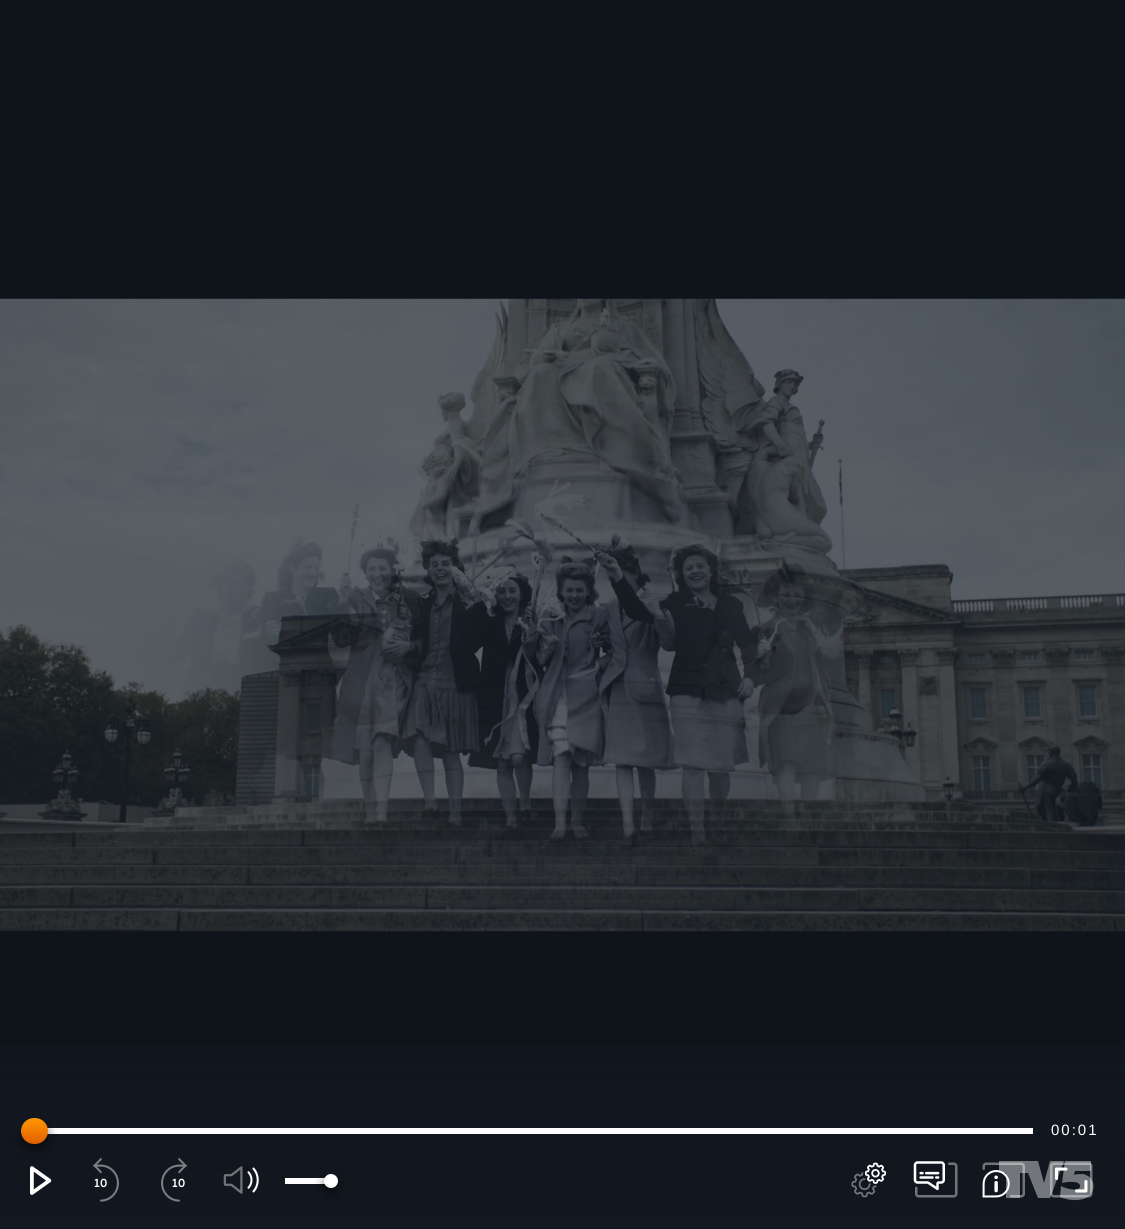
#include <cairo.h>
#include <math.h>
#include <stddef.h>


static void rgb(cairo_t *cr, int r, int g, int b)
{
	cairo_set_source_rgb(cr, r / 255.0, g / 255.0, b / 255.0);
}

static void face(cairo_t *cr, const char *family, double size, int italic, int bold)
{
	cairo_select_font_face(cr, family, italic ? CAIRO_FONT_SLANT_ITALIC : CAIRO_FONT_SLANT_NORMAL,
		bold ? CAIRO_FONT_WEIGHT_BOLD : CAIRO_FONT_WEIGHT_NORMAL);
	cairo_set_font_size(cr, size);
}

static void tracked(cairo_t *cr, double x, double y, const char *s, double letter, double word)
{
	cairo_move_to(cr, x, y);
	while (*s) {
		char ch[5] = {0};
		int n = 0;
		do ch[n++] = *s++; while ((*s & 0xC0) == 0x80);
		cairo_show_text(cr, ch);
		cairo_rel_move_to(cr, letter + word * (*ch == ' '), 0);
	}
}

static void rect(cairo_t *cr, double x, double y, double w, double h)
{
	cairo_rectangle(cr, x, y, w, h);
	cairo_fill(cr);
}

static void rrect(cairo_t *cr, double x, double y, double w, double h, double r)
{
	cairo_new_sub_path(cr);
	cairo_arc(cr, x + w - r, y + h - r, r, 0, M_PI / 2);
	cairo_arc(cr, x + r, y + h - r, r, M_PI / 2, M_PI);
	cairo_arc(cr, x + r, y + r, r, M_PI, 1.5 * M_PI);
	cairo_arc(cr, x + w - r, y + r, r, 1.5 * M_PI, 2 * M_PI);
	cairo_close_path(cr);
}

static void soft_shadow(cairo_t *cr, double x, double y, double w, double h, double r, double blur, double alpha)
{
	cairo_push_group_with_content(cr, CAIRO_CONTENT_ALPHA);
	cairo_set_operator(cr, CAIRO_OPERATOR_SOURCE);
	for (int i = 15; i >= -15 && fmin(w, h) + blur * i / 3 > 0; i -= 2) {
		double e = blur * i / 6;
		cairo_set_source_rgba(cr, 0, 0, 0, alpha * erfc((i - 1) / 8.5) / 2);
		rrect(cr, x - e, y - e, w + 2 * e, h + 2 * e, fmax(0, fmin(r + e + blur * .6, fmin(w, h) / 2 + e)));
		cairo_fill(cr);
	}
	cairo_pattern_t *soft = cairo_pop_group(cr);
	cairo_mask(cr, soft);
	cairo_pattern_destroy(soft);
}

static void image(cairo_t *cr, const char *path, double x, double y, double w, double h)
{
	cairo_surface_t *image = cairo_image_surface_create_from_png(path);
	cairo_save(cr);
	cairo_set_source_surface(cr, image, x, y);
	cairo_rectangle(cr, x, y, w, h);
	cairo_fill(cr);
	cairo_restore(cr);
	cairo_surface_destroy(image);
}

static void draw(cairo_t *cr) {
	cairo_pattern_t *gradient;
	rgb(cr, 15, 20, 27);
	cairo_paint(cr);
	image(cr, "image0.png", 0, 298, 1125, 634);
	gradient = cairo_pattern_create_linear(563, 1110, 563, 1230);
	cairo_pattern_add_color_stop_rgba(gradient, 0, 0.059, 0.078, 0.106, 1);
	cairo_pattern_add_color_stop_rgba(gradient, 1, 0.02, 0.024, 0.031, 1);
	cairo_set_source(cr, gradient);
	cairo_pattern_destroy(gradient);
	rect(cr, 0, 1126, 1125, 103);
	gradient = cairo_pattern_create_linear(563, 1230, 563, 988);
	cairo_pattern_add_color_stop_rgba(gradient, 0, 0.086, 0.114, 0.153, 0.8);
	cairo_pattern_add_color_stop_rgba(gradient, 1, 0.086, 0.114, 0.153, 0);
	cairo_set_source(cr, gradient);
	cairo_pattern_destroy(gradient);
	rect(cr, 0, 1046, 1125, 183);
	rgb(cr, 255, 255, 255);
	rect(cr, 47, 1128, 986, 6);
	image(cr, "image1.png", 30, 1166, 22, 29);
	rgb(cr, 0, 0, 0);
	soft_shadow(cr, 21, 1123, 27, 26, 13, 5.5, 0.5);
	gradient = cairo_pattern_create_linear(34, 1118, 34, 1144);
	cairo_pattern_add_color_stop_rgba(gradient, 0, 1, 0.592, 0, 1);
	cairo_pattern_add_color_stop_rgba(gradient, 1, 0.886, 0.373, 0, 1);
	cairo_set_source(cr, gradient);
	cairo_pattern_destroy(gradient);
	rrect(cr, 21, 1118, 27, 26, 13);
	cairo_fill(cr);
	face(cr, "Liberation Sans", 15, 0, 0);
	rgb(cr, 255, 255, 255);
	tracked(cr, 1051, 1135, "00:01", 2, 0);
	image(cr, "image2.png", 92, 1158, 27, 44);
	image(cr, "image3.png", 161, 1158, 27, 44);
	image(cr, "image4.png", 223, 1166, 36, 28);
	rect(cr, 285, 1178, 45, 6);
	rgb(cr, 0, 0, 0);
	soft_shadow(cr, 324, 1179, 14, 14, 7, 5.5, 0.5);
	rgb(cr, 255, 255, 255);
	cairo_arc(cr, 331, 1181, 7, 0, 2 * M_PI);
	cairo_fill(cr);
	image(cr, "image5.png", 851, 1162, 36, 36);
	image(cr, "image6.png", 913, 1161, 45, 37);
	image(cr, "image7.png", 982, 1162, 43, 36);
	image(cr, "image8.png", 1050, 1162, 43, 36);
	cairo_set_source_rgba(cr, 1, 1, 1, 0.41);
	cairo_set_fill_rule(cr, CAIRO_FILL_RULE_EVEN_ODD);
	cairo_new_path(cr);
	cairo_move_to(cr, 1065, 1161);
	cairo_line_to(cr, 1091, 1161);
	cairo_line_to(cr, 1091, 1171);
	cairo_line_to(cr, 1075, 1171);
	cairo_line_to(cr, 1074, 1175);
	cairo_curve_to(cr, 1076, 1174, 1080, 1174, 1083, 1174);
	cairo_curve_to(cr, 1093, 1176, 1097, 1187, 1090, 1195);
	cairo_curve_to(cr, 1083, 1202, 1069, 1201, 1060, 1197);
	cairo_line_to(cr, 1061, 1186);
	cairo_curve_to(cr, 1064, 1188, 1080, 1193, 1080, 1186);
	cairo_curve_to(cr, 1080, 1180, 1065, 1182, 1062, 1183);
	cairo_close_path(cr);
	cairo_move_to(cr, 999, 1173);
	cairo_line_to(cr, 999, 1161);
	cairo_line_to(cr, 1038, 1161);
	cairo_line_to(cr, 1044, 1183);
	cairo_line_to(cr, 1050, 1161);
	cairo_line_to(cr, 1064, 1161);
	cairo_line_to(cr, 1050, 1198);
	cairo_line_to(cr, 1038, 1198);
	cairo_line_to(cr, 1028, 1173);
	cairo_line_to(cr, 1020, 1173);
	cairo_line_to(cr, 1020, 1198);
	cairo_line_to(cr, 1006, 1198);
	cairo_line_to(cr, 1006, 1173);
	cairo_close_path(cr);
	cairo_fill(cr);
}

int main(void) {
	cairo_surface_t *surface = cairo_image_surface_create(CAIRO_FORMAT_RGB24, 1125, 1229);
	cairo_t *cr = cairo_create(surface);
	cairo_font_options_t *options = cairo_font_options_create();
	cairo_font_options_set_hint_metrics(options, CAIRO_HINT_METRICS_OFF);
	cairo_font_options_set_hint_style(options, CAIRO_HINT_STYLE_NONE);
	cairo_set_font_options(cr, options);
	cairo_set_miter_limit(cr, 4);
	draw(cr);
	cairo_surface_write_to_png(surface, "render.png");
	cairo_font_options_destroy(options);
	cairo_destroy(cr);
	cairo_surface_destroy(surface);
	return 0;
}
